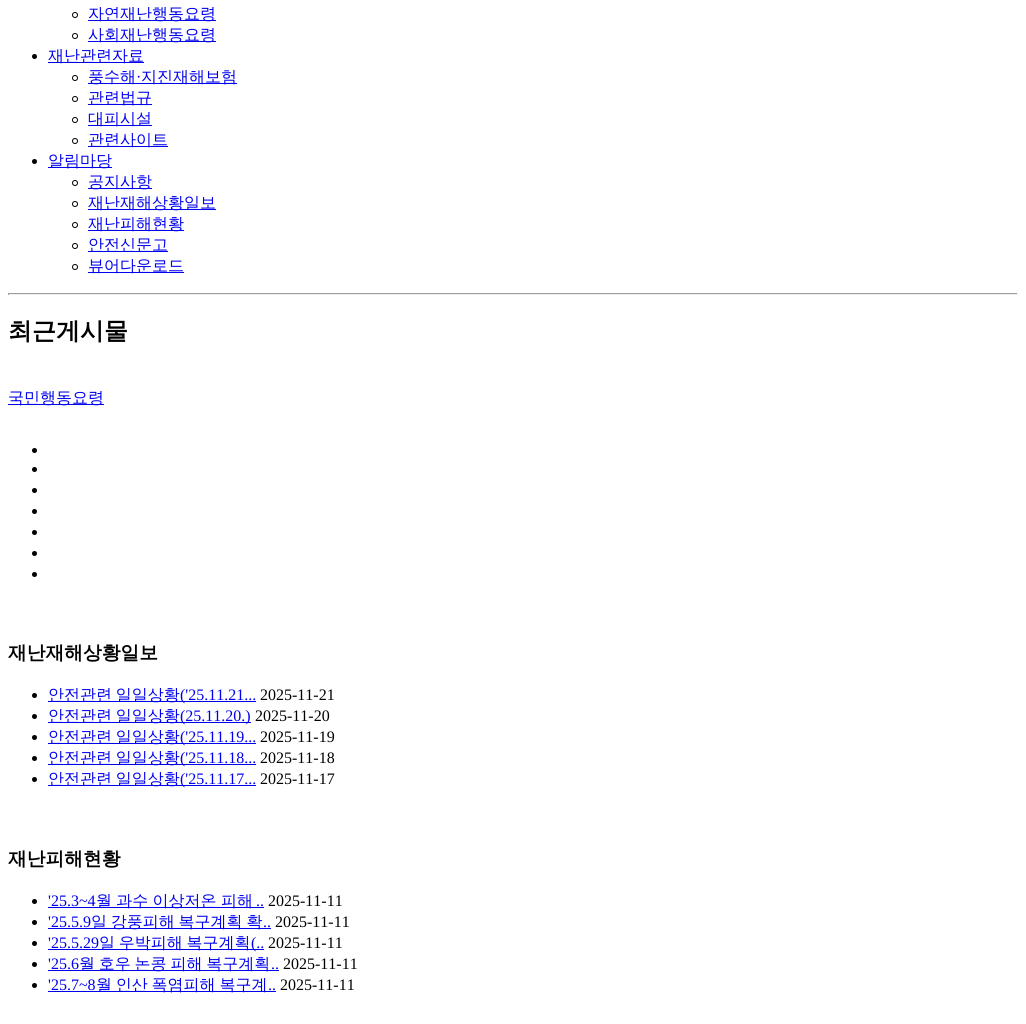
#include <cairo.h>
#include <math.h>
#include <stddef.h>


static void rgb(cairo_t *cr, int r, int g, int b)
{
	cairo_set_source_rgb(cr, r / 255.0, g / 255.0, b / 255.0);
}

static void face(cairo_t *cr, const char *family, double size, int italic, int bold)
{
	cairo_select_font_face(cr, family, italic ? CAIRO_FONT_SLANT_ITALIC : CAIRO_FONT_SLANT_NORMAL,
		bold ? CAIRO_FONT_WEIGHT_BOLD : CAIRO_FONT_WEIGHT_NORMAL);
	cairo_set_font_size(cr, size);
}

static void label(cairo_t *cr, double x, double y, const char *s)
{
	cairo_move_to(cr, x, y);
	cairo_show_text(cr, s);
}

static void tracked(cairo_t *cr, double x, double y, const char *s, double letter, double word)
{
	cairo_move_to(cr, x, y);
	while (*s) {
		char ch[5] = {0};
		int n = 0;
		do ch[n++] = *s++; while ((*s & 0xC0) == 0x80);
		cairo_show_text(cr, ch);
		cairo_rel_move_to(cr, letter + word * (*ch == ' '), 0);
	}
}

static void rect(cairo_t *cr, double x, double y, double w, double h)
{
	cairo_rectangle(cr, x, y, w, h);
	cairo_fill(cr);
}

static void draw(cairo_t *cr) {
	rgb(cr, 255, 255, 255);
	cairo_paint(cr);
	cairo_arc(cr, 75, 15, 2.5, 0, 2 * M_PI);
	rgb(cr, 0, 0, 0);
	cairo_set_line_width(cr, 1);
	cairo_stroke(cr);
	rgb(cr, 0, 0, 238);
	rect(cr, 88, 20, 128, 1);
	face(cr, "WenQuanYi Zen Hei Medium", 16, 0, 0);
	label(cr, 88, 19, "자연재난행동요령");
	cairo_new_path(cr);
	cairo_arc(cr, 75, 36, 2.5, 0, 2 * M_PI);
	rgb(cr, 0, 0, 0);
	cairo_stroke(cr);
	rgb(cr, 0, 0, 238);
	rect(cr, 88, 41, 128, 1);
	label(cr, 88, 40, "사회재난행동요령");
	rgb(cr, 0, 0, 0);
	cairo_new_path(cr);
	cairo_arc(cr, 34.5, 56.5, 2.5, 0, 2 * M_PI);
	cairo_fill(cr);
	rgb(cr, 0, 0, 238);
	rect(cr, 48, 62, 96, 1);
	label(cr, 48, 61, "재난관련자료");
	cairo_new_path(cr);
	cairo_arc(cr, 75, 78, 2.5, 0, 2 * M_PI);
	rgb(cr, 0, 0, 0);
	cairo_stroke(cr);
	rgb(cr, 0, 0, 238);
	rect(cr, 88, 83, 149, 1);
	label(cr, 88, 82, "풍수해");
	face(cr, "Liberation Serif", 16, 0, 0);
	label(cr, 136, 82, "·");
	face(cr, "WenQuanYi Zen Hei Medium", 16, 0, 0);
	label(cr, 141, 82, "지진재해보험");
	cairo_new_path(cr);
	cairo_arc(cr, 75, 99, 2.5, 0, 2 * M_PI);
	rgb(cr, 0, 0, 0);
	cairo_stroke(cr);
	rgb(cr, 0, 0, 238);
	rect(cr, 88, 104, 64, 1);
	label(cr, 88, 103, "관련법규");
	cairo_new_path(cr);
	cairo_arc(cr, 75, 120, 2.5, 0, 2 * M_PI);
	rgb(cr, 0, 0, 0);
	cairo_stroke(cr);
	rgb(cr, 0, 0, 238);
	rect(cr, 88, 125, 64, 1);
	label(cr, 88, 124, "대피시설");
	cairo_new_path(cr);
	cairo_arc(cr, 75, 141, 2.5, 0, 2 * M_PI);
	rgb(cr, 0, 0, 0);
	cairo_stroke(cr);
	rgb(cr, 0, 0, 238);
	rect(cr, 88, 146, 80, 1);
	label(cr, 88, 145, "관련사이트");
	rgb(cr, 0, 0, 0);
	cairo_new_path(cr);
	cairo_arc(cr, 34.5, 161.5, 2.5, 0, 2 * M_PI);
	cairo_fill(cr);
	rgb(cr, 0, 0, 238);
	rect(cr, 48, 167, 64, 1);
	label(cr, 48, 166, "알림마당");
	cairo_new_path(cr);
	cairo_arc(cr, 75, 183, 2.5, 0, 2 * M_PI);
	rgb(cr, 0, 0, 0);
	cairo_stroke(cr);
	rgb(cr, 0, 0, 238);
	rect(cr, 88, 188, 64, 1);
	label(cr, 88, 187, "공지사항");
	cairo_new_path(cr);
	cairo_arc(cr, 75, 204, 2.5, 0, 2 * M_PI);
	rgb(cr, 0, 0, 0);
	cairo_stroke(cr);
	rgb(cr, 0, 0, 238);
	rect(cr, 88, 209, 128, 1);
	label(cr, 88, 208, "재난재해상황일보");
	cairo_new_path(cr);
	cairo_arc(cr, 75, 225, 2.5, 0, 2 * M_PI);
	rgb(cr, 0, 0, 0);
	cairo_stroke(cr);
	rgb(cr, 0, 0, 238);
	rect(cr, 88, 230, 96, 1);
	label(cr, 88, 229, "재난피해현황");
	cairo_new_path(cr);
	cairo_arc(cr, 75, 246, 2.5, 0, 2 * M_PI);
	rgb(cr, 0, 0, 0);
	cairo_stroke(cr);
	rgb(cr, 0, 0, 238);
	rect(cr, 88, 251, 80, 1);
	label(cr, 88, 250, "안전신문고");
	cairo_new_path(cr);
	cairo_arc(cr, 75, 267, 2.5, 0, 2 * M_PI);
	rgb(cr, 0, 0, 0);
	cairo_stroke(cr);
	rgb(cr, 0, 0, 238);
	rect(cr, 88, 272, 96, 1);
	label(cr, 88, 271, "뷰어다운로드");
	rgb(cr, 159, 159, 159);
	rect(cr, 8, 293, 1010, 1);
	rgb(cr, 238, 238, 238);
	rect(cr, 1017, 293, 1, 2);
	rect(cr, 8, 294, 1010, 1);
	rgb(cr, 159, 159, 159);
	rect(cr, 8, 293, 1, 2);
	face(cr, "WenQuanYi Zen Hei", 24, 0, 1);
	rgb(cr, 0, 0, 0);
	label(cr, 8, 339, "최근게시물");
	rgb(cr, 0, 0, 238);
	rect(cr, 8, 404, 96, 1);
	face(cr, "WenQuanYi Zen Hei Medium", 16, 0, 0);
	label(cr, 8, 403, "국민행동요령");
	rgb(cr, 0, 0, 0);
	cairo_new_path(cr);
	cairo_arc(cr, 34.5, 450.5, 2.5, 0, 2 * M_PI);
	cairo_fill(cr);
	cairo_arc(cr, 34.5, 469.5, 2.5, 0, 2 * M_PI);
	cairo_fill(cr);
	cairo_arc(cr, 34.5, 490.5, 2.5, 0, 2 * M_PI);
	cairo_fill(cr);
	cairo_arc(cr, 34.5, 511.5, 2.5, 0, 2 * M_PI);
	cairo_fill(cr);
	cairo_arc(cr, 34.5, 532.5, 2.5, 0, 2 * M_PI);
	cairo_fill(cr);
	cairo_arc(cr, 34.5, 553.5, 2.5, 0, 2 * M_PI);
	cairo_fill(cr);
	cairo_arc(cr, 34.5, 574.5, 2.5, 0, 2 * M_PI);
	cairo_fill(cr);
	face(cr, "WenQuanYi Zen Hei", 18.75, 0, 1);
	label(cr, 8, 659, "재난재해상황일보");
	cairo_new_path(cr);
	cairo_arc(cr, 34.5, 695.5, 2.5, 0, 2 * M_PI);
	cairo_fill(cr);
	rgb(cr, 0, 0, 238);
	rect(cr, 48, 701, 208, 1);
	face(cr, "WenQuanYi Zen Hei Medium", 16, 0, 0);
	tracked(cr, 48, 700, "안전관련 일일상황", 0, -1);
	face(cr, "Liberation Serif", 16, 0, 0);
	label(cr, 180, 700, "('25.11.21...");
	rgb(cr, 0, 0, 0);
	label(cr, 260, 700, "2025-11-21");
	cairo_new_path(cr);
	cairo_arc(cr, 34.5, 716.5, 2.5, 0, 2 * M_PI);
	cairo_fill(cr);
	rgb(cr, 0, 0, 238);
	rect(cr, 48, 722, 203, 1);
	face(cr, "WenQuanYi Zen Hei Medium", 16, 0, 0);
	tracked(cr, 48, 721, "안전관련 일일상황", 0, -1);
	face(cr, "Liberation Serif", 16, 0, 0);
	label(cr, 180, 721, "(25.11.20.)");
	rgb(cr, 0, 0, 0);
	label(cr, 255, 721, "2025-11-20");
	cairo_new_path(cr);
	cairo_arc(cr, 34.5, 737.5, 2.5, 0, 2 * M_PI);
	cairo_fill(cr);
	rgb(cr, 0, 0, 238);
	rect(cr, 48, 743, 208, 1);
	face(cr, "WenQuanYi Zen Hei Medium", 16, 0, 0);
	tracked(cr, 48, 742, "안전관련 일일상황", 0, -1);
	face(cr, "Liberation Serif", 16, 0, 0);
	label(cr, 180, 742, "('25.11.19...");
	rgb(cr, 0, 0, 0);
	label(cr, 260, 742, "2025-11-19");
	cairo_new_path(cr);
	cairo_arc(cr, 34.5, 758.5, 2.5, 0, 2 * M_PI);
	cairo_fill(cr);
	rgb(cr, 0, 0, 238);
	rect(cr, 48, 764, 208, 1);
	face(cr, "WenQuanYi Zen Hei Medium", 16, 0, 0);
	tracked(cr, 48, 763, "안전관련 일일상황", 0, -1);
	face(cr, "Liberation Serif", 16, 0, 0);
	label(cr, 180, 763, "('25.11.18...");
	rgb(cr, 0, 0, 0);
	label(cr, 260, 763, "2025-11-18");
	cairo_new_path(cr);
	cairo_arc(cr, 34.5, 779.5, 2.5, 0, 2 * M_PI);
	cairo_fill(cr);
	rgb(cr, 0, 0, 238);
	rect(cr, 48, 785, 208, 1);
	face(cr, "WenQuanYi Zen Hei Medium", 16, 0, 0);
	tracked(cr, 48, 784, "안전관련 일일상황", 0, -1);
	face(cr, "Liberation Serif", 16, 0, 0);
	label(cr, 180, 784, "('25.11.17...");
	rgb(cr, 0, 0, 0);
	label(cr, 260, 784, "2025-11-17");
	face(cr, "WenQuanYi Zen Hei", 18.75, 0, 1);
	label(cr, 8, 865, "재난피해현황");
	cairo_new_path(cr);
	cairo_arc(cr, 34.5, 901.5, 2.5, 0, 2 * M_PI);
	cairo_fill(cr);
	face(cr, "Liberation Serif", 16, 0, 0);
	rgb(cr, 0, 0, 238);
	label(cr, 48, 906, "'25.3~4");
	rect(cr, 48, 907, 216, 1);
	face(cr, "WenQuanYi Zen Hei Medium", 16, 0, 0);
	tracked(cr, 96, 906, "월 과수 이상저온 피해", 0, -0.5);
	face(cr, "Liberation Serif", 16, 0, 0);
	rgb(cr, 0, 0, 0);
	label(cr, 268, 906, "2025-11-11");
	rgb(cr, 0, 0, 238);
	label(cr, 256, 906, "..");
	rgb(cr, 0, 0, 0);
	cairo_new_path(cr);
	cairo_arc(cr, 34.5, 922.5, 2.5, 0, 2 * M_PI);
	cairo_fill(cr);
	rgb(cr, 0, 0, 238);
	label(cr, 48, 927, "'25.5.9");
	rect(cr, 48, 928, 223, 1);
	face(cr, "WenQuanYi Zen Hei Medium", 16, 0, 0);
	tracked(cr, 91, 927, "일 강풍피해 복구계획 확", 0, -1);
	face(cr, "Liberation Serif", 16, 0, 0);
	rgb(cr, 0, 0, 0);
	label(cr, 275, 927, "2025-11-11");
	rgb(cr, 0, 0, 238);
	label(cr, 263, 927, "..");
	rgb(cr, 0, 0, 0);
	cairo_new_path(cr);
	cairo_arc(cr, 34.5, 943.5, 2.5, 0, 2 * M_PI);
	cairo_fill(cr);
	rgb(cr, 0, 0, 238);
	label(cr, 48, 948, "'25.5.29");
	rect(cr, 48, 949, 216, 1);
	face(cr, "WenQuanYi Zen Hei Medium", 16, 0, 0);
	tracked(cr, 99, 948, "일 우박피해 복구계획", 0, -1);
	face(cr, "Liberation Serif", 16, 0, 0);
	label(cr, 251, 948, "(..");
	rgb(cr, 0, 0, 0);
	label(cr, 268, 948, "2025-11-11");
	cairo_new_path(cr);
	cairo_arc(cr, 34.5, 964.5, 2.5, 0, 2 * M_PI);
	cairo_fill(cr);
	rgb(cr, 0, 0, 238);
	label(cr, 48, 969, "'25.6");
	rect(cr, 48, 970, 231, 1);
	face(cr, "WenQuanYi Zen Hei Medium", 16, 0, 0);
	tracked(cr, 79, 969, "월 호우 논콩 피해 복구계획", 0, -1);
	face(cr, "Liberation Serif", 16, 0, 0);
	rgb(cr, 0, 0, 0);
	label(cr, 283, 969, "2025-11-11");
	rgb(cr, 0, 0, 238);
	label(cr, 271, 969, "..");
	rgb(cr, 0, 0, 0);
	cairo_new_path(cr);
	cairo_arc(cr, 34.5, 985.5, 2.5, 0, 2 * M_PI);
	cairo_fill(cr);
	rgb(cr, 0, 0, 238);
	label(cr, 48, 990, "'25.7~8");
	rect(cr, 48, 991, 228, 1);
	face(cr, "WenQuanYi Zen Hei Medium", 16, 0, 0);
	tracked(cr, 96, 990, "월 인산 폭염피해 복구계", 0, -1);
	face(cr, "Liberation Serif", 16, 0, 0);
	rgb(cr, 0, 0, 0);
	label(cr, 280, 990, "2025-11-11");
	rgb(cr, 0, 0, 238);
	label(cr, 268, 990, "..");
}

int main(void) {
	cairo_surface_t *surface = cairo_image_surface_create(CAIRO_FORMAT_RGB24, 1026, 1024);
	cairo_t *cr = cairo_create(surface);
	cairo_font_options_t *options = cairo_font_options_create();
	cairo_font_options_set_hint_metrics(options, CAIRO_HINT_METRICS_OFF);
	cairo_font_options_set_hint_style(options, CAIRO_HINT_STYLE_NONE);
	cairo_set_font_options(cr, options);
	cairo_set_miter_limit(cr, 4);
	draw(cr);
	cairo_surface_write_to_png(surface, "render.png");
	cairo_font_options_destroy(options);
	cairo_destroy(cr);
	cairo_surface_destroy(surface);
	return 0;
}
